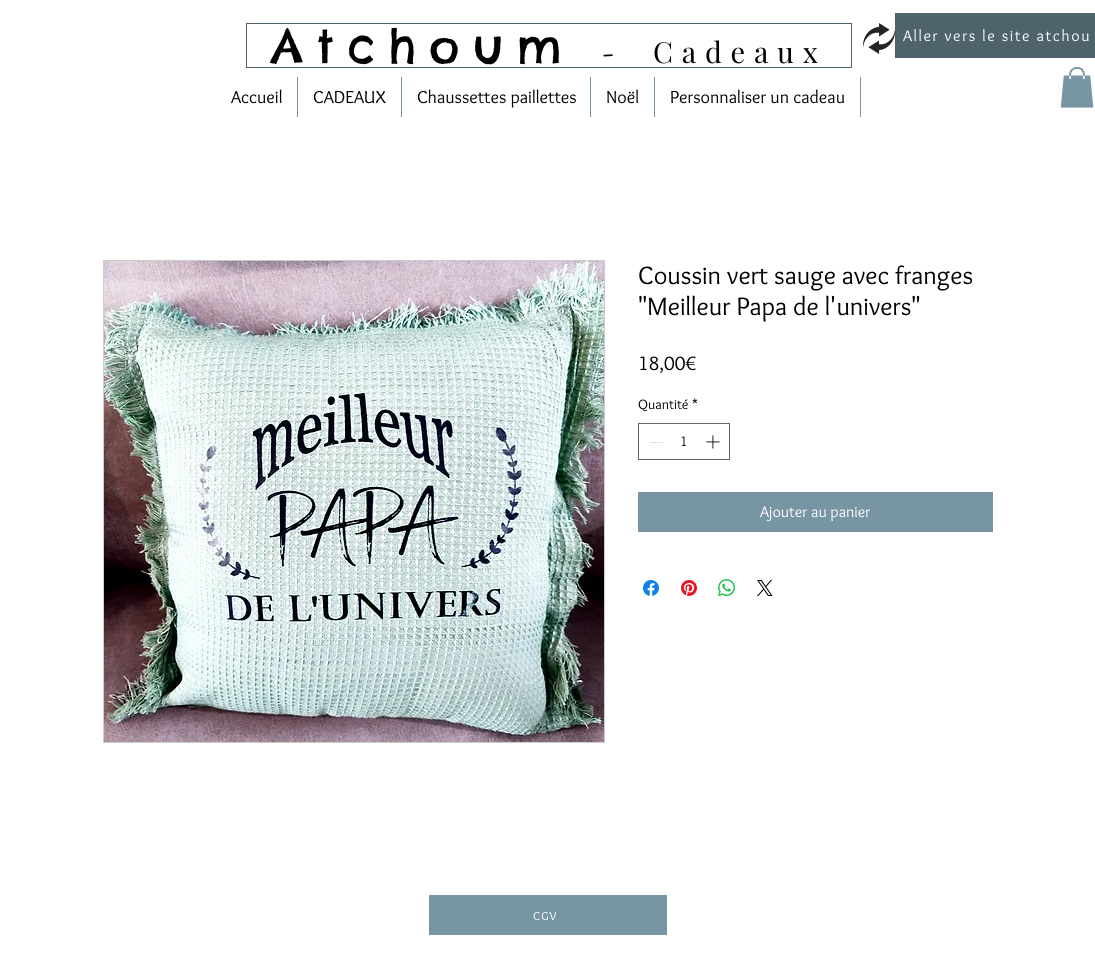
#include <cairo.h>
#include <math.h>
#include <stddef.h>


static void rgb(cairo_t *cr, int r, int g, int b)
{
	cairo_set_source_rgb(cr, r / 255.0, g / 255.0, b / 255.0);
}

static void face(cairo_t *cr, const char *family, double size, int italic, int bold)
{
	cairo_select_font_face(cr, family, italic ? CAIRO_FONT_SLANT_ITALIC : CAIRO_FONT_SLANT_NORMAL,
		bold ? CAIRO_FONT_WEIGHT_BOLD : CAIRO_FONT_WEIGHT_NORMAL);
	cairo_set_font_size(cr, size);
}

static void label(cairo_t *cr, double x, double y, const char *s)
{
	cairo_move_to(cr, x, y);
	cairo_show_text(cr, s);
}

static void tracked(cairo_t *cr, double x, double y, const char *s, double letter, double word)
{
	cairo_move_to(cr, x, y);
	while (*s) {
		char ch[5] = {0};
		int n = 0;
		do ch[n++] = *s++; while ((*s & 0xC0) == 0x80);
		cairo_show_text(cr, ch);
		cairo_rel_move_to(cr, letter + word * (*ch == ' '), 0);
	}
}

static void rect(cairo_t *cr, double x, double y, double w, double h)
{
	cairo_rectangle(cr, x, y, w, h);
	cairo_fill(cr);
}

static void image(cairo_t *cr, const char *path, double x, double y, double w, double h)
{
	cairo_surface_t *image = cairo_image_surface_create_from_png(path);
	cairo_save(cr);
	cairo_set_source_surface(cr, image, x, y);
	cairo_rectangle(cr, x, y, w, h);
	cairo_fill(cr);
	cairo_restore(cr);
	cairo_surface_destroy(image);
}

static void draw(cairo_t *cr) {
	rgb(cr, 255, 255, 255);
	cairo_paint(cr);
	cairo_rectangle(cr, 246.5, 23.5, 605, 44);
	rgb(cr, 79, 99, 109);
	cairo_set_line_width(cr, 1);
	cairo_stroke(cr);
	image(cr, "image0.png", 863, 23, 32, 31);
	face(cr, "Chelsea Market", 46, 0, 0);
	rgb(cr, 0, 0, 0);
	tracked(cr, 271, 63, "Atchoum", 13.75, 0);
	face(cr, "Sacramento", 46, 0, 0);
	tracked(cr, 598, 63, "-", 13.75, 0);
	face(cr, "Playfair Display", 29, 0, 0);
	tracked(cr, 653, 63, "Cadeaux", 8.75, 0);
	rgb(cr, 79, 99, 109);
	rect(cr, 895, 13, 200, 45);
	face(cr, "Overlock", 16, 0, 0);
	rgb(cr, 255, 255, 255);
	tracked(cr, 903, 41, "Aller vers le site atchou", 1.6, 0);
	face(cr, "Overlock", 18, 0, 0);
	rgb(cr, 0, 0, 0);
	label(cr, 231, 103, "Accueil");
	rgb(cr, 119, 149, 163);
	rect(cr, 297, 77, 1, 40);
	rgb(cr, 0, 0, 0);
	label(cr, 313, 103, "CADEAUX");
	rgb(cr, 119, 149, 163);
	rect(cr, 401, 77, 1, 40);
	rgb(cr, 0, 0, 0);
	label(cr, 417, 103, "Chaussettes paillettes");
	rgb(cr, 119, 149, 163);
	rect(cr, 590, 77, 1, 40);
	rgb(cr, 0, 0, 0);
	label(cr, 606, 103, "Noël");
	rgb(cr, 119, 149, 163);
	rect(cr, 654, 77, 1, 40);
	rgb(cr, 0, 0, 0);
	label(cr, 670, 103, "Personnaliser un cadeau");
	rgb(cr, 119, 149, 163);
	rect(cr, 860, 77, 1, 40);
	image(cr, "image1.png", 1060, 67, 34, 41);
	cairo_rectangle(cr, 103.5, 260.5, 501, 482);
	rgb(cr, 204, 204, 204);
	cairo_stroke(cr);
	image(cr, "image2.png", 104, 261, 500, 481);
	face(cr, "Overlock", 26, 0, 0);
	rgb(cr, 0, 0, 0);
	label(cr, 638, 284, "Coussin vert sauge avec franges");
	label(cr, 638, 315, "\"Meilleur Papa de l'univers\"");
	face(cr, "Overlock", 20, 0, 0);
	label(cr, 638, 370, "18,00€");
	face(cr, "Overlock", 14, 0, 0);
	label(cr, 638, 409, "Quantité");
	label(cr, 692, 409, "*");
	cairo_rectangle(cr, 638.5, 423.5, 91, 36);
	rgb(cr, 102, 102, 102);
	cairo_stroke(cr);
	rgb(cr, 227, 227, 227);
	rect(cr, 650, 442, 13, 1);
	rgb(cr, 0, 0, 0);
	label(cr, 680, 446, "1");
	image(cr, "image3.png", 706, 435, 14, 14);
	rgb(cr, 119, 149, 163);
	rect(cr, 638, 492, 355, 40);
	face(cr, "Overlock", 16, 0, 0);
	rgb(cr, 255, 255, 255);
	label(cr, 760, 517, "Ajouter au panier");
	image(cr, "image4.png", 643, 580, 16, 16);
	image(cr, "image5.png", 681, 580, 16, 16);
	image(cr, "image6.png", 718, 579, 17, 17);
	image(cr, "image7.png", 757, 580, 16, 16);
	rgb(cr, 119, 149, 163);
	rect(cr, 429, 895, 238, 40);
	face(cr, "Overlock", 12, 0, 0);
	rgb(cr, 255, 255, 255);
	tracked(cr, 533, 920, "CGV", 1, 0);
}

int main(void) {
	cairo_surface_t *surface = cairo_image_surface_create(CAIRO_FORMAT_RGB24, 1095, 960);
	cairo_t *cr = cairo_create(surface);
	cairo_font_options_t *options = cairo_font_options_create();
	cairo_font_options_set_hint_metrics(options, CAIRO_HINT_METRICS_OFF);
	cairo_font_options_set_hint_style(options, CAIRO_HINT_STYLE_NONE);
	cairo_set_font_options(cr, options);
	cairo_set_miter_limit(cr, 4);
	draw(cr);
	cairo_surface_write_to_png(surface, "render.png");
	cairo_font_options_destroy(options);
	cairo_destroy(cr);
	cairo_surface_destroy(surface);
	return 0;
}
